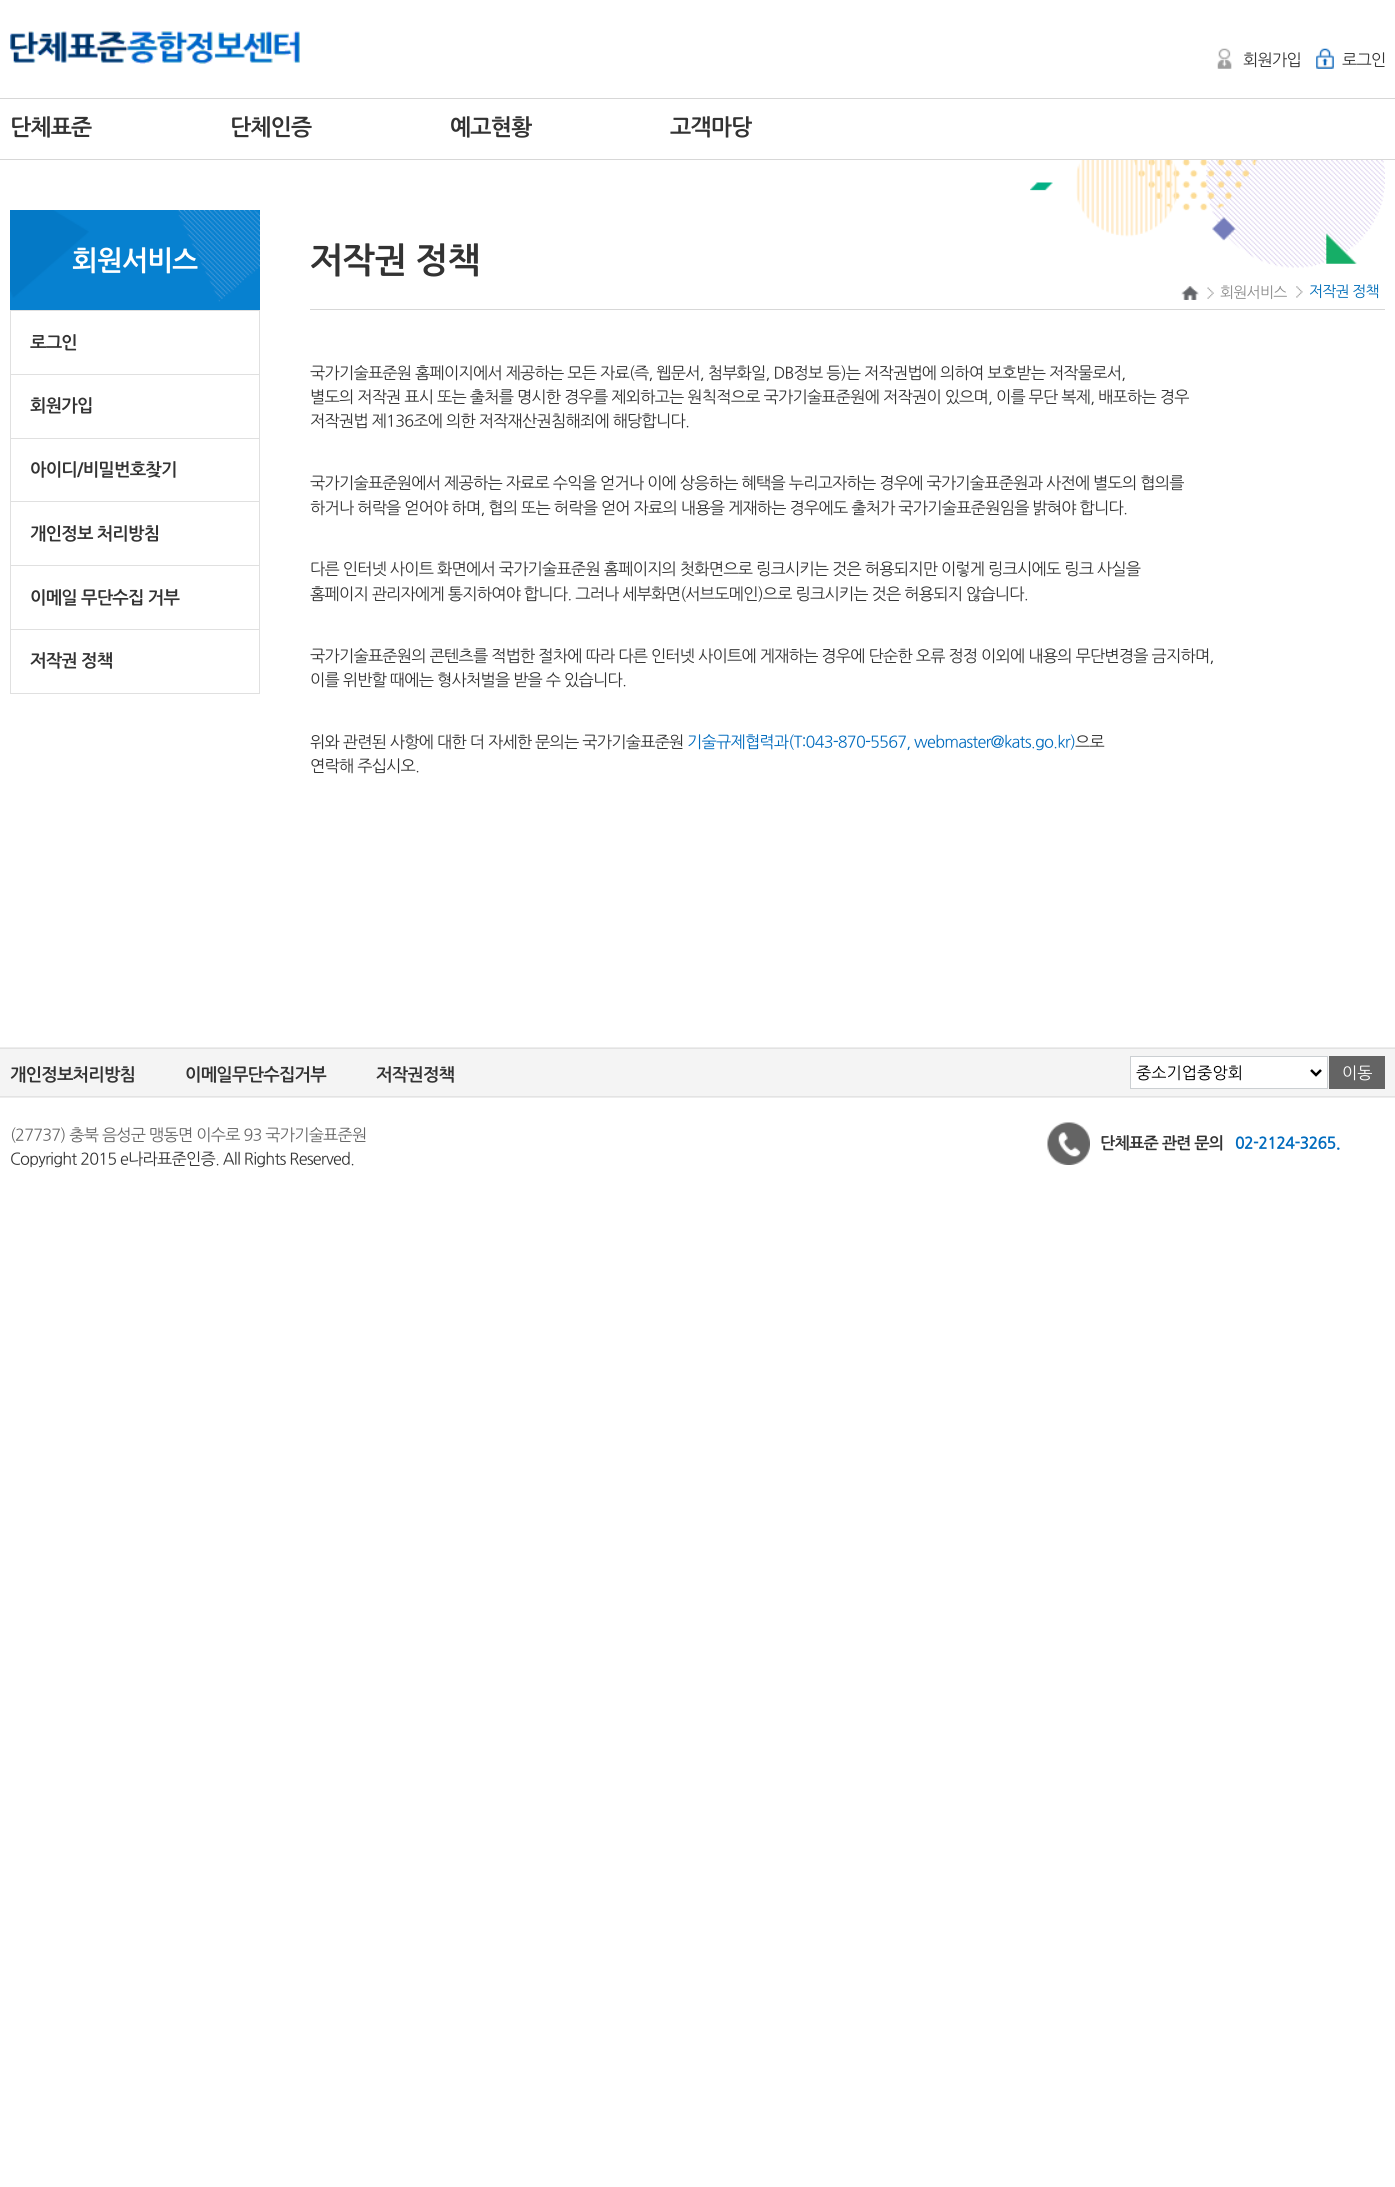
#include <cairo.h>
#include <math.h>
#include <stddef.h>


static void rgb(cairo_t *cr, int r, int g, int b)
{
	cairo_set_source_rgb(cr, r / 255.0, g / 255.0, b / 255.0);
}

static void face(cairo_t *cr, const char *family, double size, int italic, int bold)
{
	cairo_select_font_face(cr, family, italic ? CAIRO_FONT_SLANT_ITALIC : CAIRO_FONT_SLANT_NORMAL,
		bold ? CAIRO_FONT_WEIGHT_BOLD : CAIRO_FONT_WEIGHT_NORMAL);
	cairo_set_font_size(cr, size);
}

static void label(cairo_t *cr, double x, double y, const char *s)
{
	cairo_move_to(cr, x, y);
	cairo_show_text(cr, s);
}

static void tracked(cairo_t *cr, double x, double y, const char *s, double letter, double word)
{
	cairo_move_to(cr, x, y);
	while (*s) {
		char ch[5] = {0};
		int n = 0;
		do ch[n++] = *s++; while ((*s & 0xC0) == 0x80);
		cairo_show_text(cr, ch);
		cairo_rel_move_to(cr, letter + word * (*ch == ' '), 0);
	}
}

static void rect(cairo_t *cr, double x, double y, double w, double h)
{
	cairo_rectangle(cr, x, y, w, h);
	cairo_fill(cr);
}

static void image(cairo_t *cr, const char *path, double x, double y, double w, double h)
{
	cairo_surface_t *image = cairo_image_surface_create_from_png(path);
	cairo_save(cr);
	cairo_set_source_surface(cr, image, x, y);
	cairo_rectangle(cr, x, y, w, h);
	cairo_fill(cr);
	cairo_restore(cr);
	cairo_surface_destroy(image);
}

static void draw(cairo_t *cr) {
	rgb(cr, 255, 255, 255);
	cairo_paint(cr);
	image(cr, "image0.png", 10, 31, 290, 33);
	image(cr, "image1.png", 1217, 48, 15, 21);
	face(cr, "NanumGothic", 16.25, 0, 0);
	rgb(cr, 51, 51, 51);
	tracked(cr, 1243, 65, "회원가입", -0.8, 0);
	image(cr, "image2.png", 1316, 48, 18, 21);
	tracked(cr, 1342, 65, "로그인", -0.8, 0);
	rgb(cr, 215, 215, 215);
	rect(cr, 0, 98, 1395, 1);
	rect(cr, 0, 159, 1395, 1);
	face(cr, "NanumGothic", 22.5, 0, 1);
	rgb(cr, 51, 51, 51);
	tracked(cr, 10, 134, "단체표준", -0.8, 0);
	tracked(cr, 230, 134, "단체인증", -0.8, 0);
	tracked(cr, 450, 134, "예고현황", -0.8, 0);
	tracked(cr, 670, 134, "고객마당", -0.8, 0);
	rgb(cr, 7, 129, 208);
	rect(cr, 10, 302, 250, 8);
	image(cr, "image3.png", 10, 210, 250, 92);
	face(cr, "NanumGothic", 27.5, 0, 1);
	rgb(cr, 255, 255, 255);
	tracked(cr, 72, 269, "회원서비스", -0.8, 0);
	rgb(cr, 224, 224, 224);
	rect(cr, 10, 310, 250, 1);
	rect(cr, 259, 310, 1, 384);
	rect(cr, 10, 310, 1, 384);
	rect(cr, 11, 374, 248, 1);
	face(cr, "NanumGothic", 17.5, 0, 1);
	rgb(cr, 51, 51, 51);
	tracked(cr, 30, 348, "로그인", -0.8, 0);
	rgb(cr, 224, 224, 224);
	rect(cr, 11, 438, 248, 1);
	rgb(cr, 51, 51, 51);
	tracked(cr, 30, 411, "회원가입", -0.8, 0);
	rgb(cr, 224, 224, 224);
	rect(cr, 11, 501, 248, 1);
	rgb(cr, 51, 51, 51);
	tracked(cr, 30, 475, "아이디/비밀번호찾기", -0.8, 0);
	rgb(cr, 224, 224, 224);
	rect(cr, 11, 565, 248, 1);
	rgb(cr, 51, 51, 51);
	tracked(cr, 30, 539, "개인정보 처리방침", -0.8, 0);
	rgb(cr, 224, 224, 224);
	rect(cr, 11, 629, 248, 1);
	rgb(cr, 51, 51, 51);
	tracked(cr, 30, 603, "이메일 무단수집 거부", -0.8, 0);
	rgb(cr, 224, 224, 224);
	rect(cr, 11, 693, 248, 1);
	rgb(cr, 51, 51, 51);
	tracked(cr, 30, 666, "저작권 정책", -0.8, 0);
	image(cr, "image4.png", 1030, 160, 355, 108);
	rgb(cr, 215, 215, 215);
	rect(cr, 310, 309, 1075, 1);
	face(cr, "NanumGothic", 35, 0, 1);
	rgb(cr, 51, 51, 51);
	tracked(cr, 310, 271, "저작권 정책", -0.8, 0);
	image(cr, "image5.png", 1181, 286, 18, 14);
	image(cr, "image6.png", 1207, 287, 7, 12);
	face(cr, "NanumGothic", 15, 0, 0);
	rgb(cr, 140, 140, 140);
	tracked(cr, 1220, 297, "회원서비스", -0.8, 0);
	image(cr, "image7.png", 1296, 286, 7, 12);
	rgb(cr, 0, 109, 184);
	tracked(cr, 1309, 296, "저작권 정책", -0.8, 0);
	face(cr, "NanumGothic", 16.25, 0, 0);
	rgb(cr, 51, 51, 51);
	tracked(cr, 310, 378, "국가기술표준원 홈페이지에서 제공하는 모든 자료(즉, 웹문서, 첨부화일, DB정보 등)는 저작권법에 의하여 보호받는 저작물로서,", -0.8, 0);
	tracked(cr, 310, 402, "별도의 저작권 표시 또는 출처를 명시한 경우를 제외하고는 원칙적으로 국가기술표준원에 저작권이 있으며, 이를 무단 복제, 배포하는 경우", -0.8, 0);
	tracked(cr, 310, 426, "저작권법 제136조에 의한 저작재산권침해죄에 해당합니다.", -0.8, 0);
	tracked(cr, 310, 488, "국가기술표준원에서 제공하는 자료로 수익을 얻거나 이에 상응하는 혜택을 누리고자하는 경우에 국가기술표준원과 사전에 별도의 협의를", -0.8, 0);
	tracked(cr, 310, 513, "하거나 허락을 얻어야 하며, 협의 또는 허락을 얻어 자료의 내용을 게재하는 경우에도 출처가 국가기술표준원임을 밝혀야 합니다.", -0.8, 0);
	tracked(cr, 310, 574, "다른 인터넷 사이트 화면에서 국가기술표준원 홈페이지의 첫화면으로 링크시키는 것은 허용되지만 이렇게 링크시에도 링크 사실을", -0.8, 0);
	tracked(cr, 310, 599, "홈페이지 관리자에게 통지하여야 합니다. 그러나 세부화면(서브도메인)으로 링크시키는 것은 허용되지 않습니다.", -0.8, 0);
	tracked(cr, 310, 661, "국가기술표준원의 콘텐츠를 적법한 절차에 따라 다른 인터넷 사이트에 게재하는 경우에 단순한 오류 정정 이외에 내용의 무단변경을 금지하며,", -0.8, 0);
	tracked(cr, 310, 685, "이를 위반할 때에는 형사처벌을 받을 수 있습니다.", -0.8, 0);
	tracked(cr, 310, 747, "위와 관련된 사항에 대한 더 자세한 문의는 국가기술표준원", -0.8, 0);
	rgb(cr, 0, 107, 190);
	tracked(cr, 687, 747, "기술규제협력과(T:043-870-5567, webmaster@kats.go.kr)", -0.8, 0);
	rgb(cr, 51, 51, 51);
	tracked(cr, 1075, 747, "으로", -0.8, 0);
	tracked(cr, 310, 771, "연락해 주십시오.", -0.8, 0);
	image(cr, "image8.png", 0, 1047, 1395, 51);
	face(cr, "NanumGothic", 17.5, 0, 1);
	tracked(cr, 10, 1080, "개인정보처리방침", -0.8, 0);
	tracked(cr, 185, 1080, "이메일무단수집거부", -0.8, 0);
	tracked(cr, 376, 1080, "저작권정책", -0.8, 0);
	rgb(cr, 255, 255, 255);
	cairo_rectangle(cr, 1130.5, 1056.5, 197, 32);
	cairo_fill_preserve(cr);
	rgb(cr, 203, 207, 210);
	cairo_set_line_width(cr, 1);
	cairo_stroke(cr);
	cairo_new_path(cr);
	cairo_move_to(cr, 1311, 1070);
	cairo_line_to(cr, 1316, 1075);
	cairo_line_to(cr, 1321, 1070);
	rgb(cr, 0, 0, 0);
	cairo_set_line_width(cr, 2.5);
	cairo_stroke(cr);
	face(cr, "NanumGothic", 16.25, 0, 0);
	label(cr, 1136, 1078, "중소기업중앙회");
	rgb(cr, 100, 100, 100);
	rect(cr, 1329, 1056, 56, 33);
	rgb(cr, 255, 255, 255);
	label(cr, 1342, 1078, "이동");
	rgb(cr, 102, 102, 102);
	tracked(cr, 10, 1140, "(27737) 충북 음성군 맹동면 이수로 93 국가기술표준원", -0.8, 0);
	rgb(cr, 51, 51, 51);
	tracked(cr, 10, 1164, "Copyright 2015 e나라표준인증. All Rights Reserved.", -0.8, 0);
	image(cr, "image9.png", 1047, 1122, 43, 43);
	face(cr, "NanumGothic", 16.25, 0, 1);
	tracked(cr, 1100, 1148, "단체표준 관련 문의", -0.8, 0);
	rgb(cr, 0, 107, 190);
	tracked(cr, 1235, 1148, "02-2124-3265.", -0.8, 0);
}

int main(void) {
	cairo_surface_t *surface = cairo_image_surface_create(CAIRO_FORMAT_RGB24, 1395, 2187);
	cairo_t *cr = cairo_create(surface);
	cairo_font_options_t *options = cairo_font_options_create();
	cairo_font_options_set_hint_metrics(options, CAIRO_HINT_METRICS_OFF);
	cairo_font_options_set_hint_style(options, CAIRO_HINT_STYLE_NONE);
	cairo_set_font_options(cr, options);
	cairo_set_miter_limit(cr, 4);
	draw(cr);
	cairo_surface_write_to_png(surface, "render.png");
	cairo_font_options_destroy(options);
	cairo_destroy(cr);
	cairo_surface_destroy(surface);
	return 0;
}
